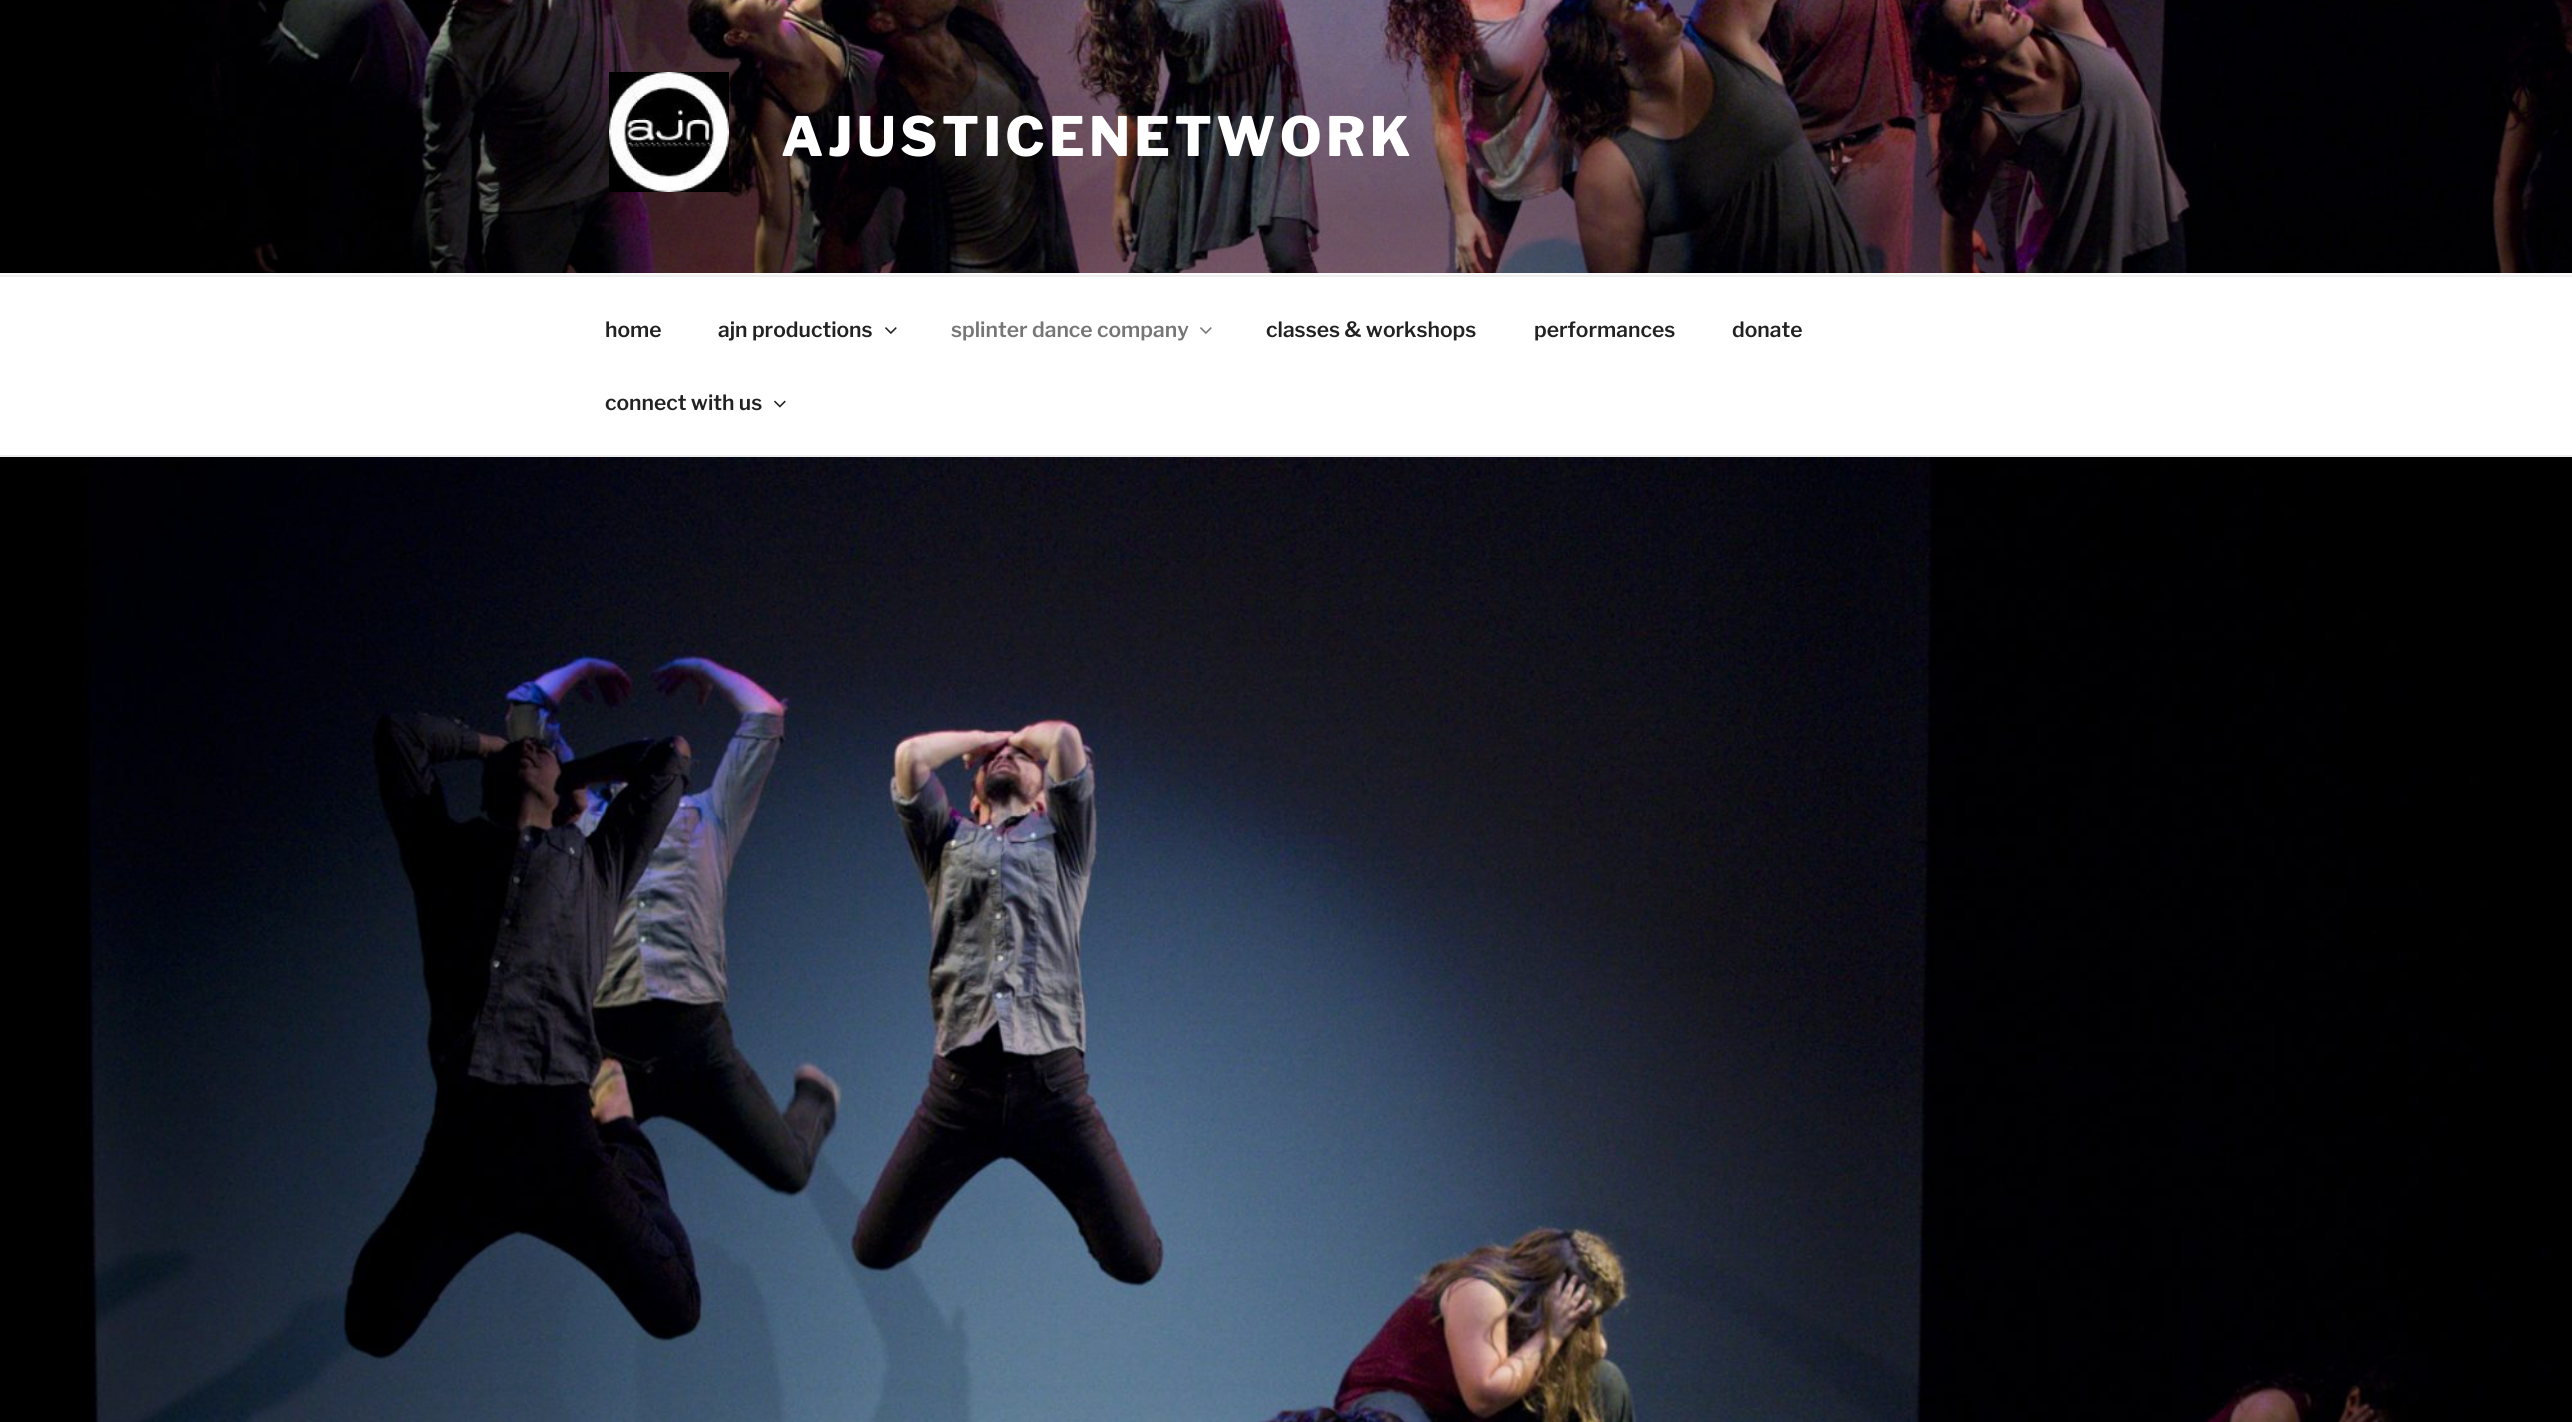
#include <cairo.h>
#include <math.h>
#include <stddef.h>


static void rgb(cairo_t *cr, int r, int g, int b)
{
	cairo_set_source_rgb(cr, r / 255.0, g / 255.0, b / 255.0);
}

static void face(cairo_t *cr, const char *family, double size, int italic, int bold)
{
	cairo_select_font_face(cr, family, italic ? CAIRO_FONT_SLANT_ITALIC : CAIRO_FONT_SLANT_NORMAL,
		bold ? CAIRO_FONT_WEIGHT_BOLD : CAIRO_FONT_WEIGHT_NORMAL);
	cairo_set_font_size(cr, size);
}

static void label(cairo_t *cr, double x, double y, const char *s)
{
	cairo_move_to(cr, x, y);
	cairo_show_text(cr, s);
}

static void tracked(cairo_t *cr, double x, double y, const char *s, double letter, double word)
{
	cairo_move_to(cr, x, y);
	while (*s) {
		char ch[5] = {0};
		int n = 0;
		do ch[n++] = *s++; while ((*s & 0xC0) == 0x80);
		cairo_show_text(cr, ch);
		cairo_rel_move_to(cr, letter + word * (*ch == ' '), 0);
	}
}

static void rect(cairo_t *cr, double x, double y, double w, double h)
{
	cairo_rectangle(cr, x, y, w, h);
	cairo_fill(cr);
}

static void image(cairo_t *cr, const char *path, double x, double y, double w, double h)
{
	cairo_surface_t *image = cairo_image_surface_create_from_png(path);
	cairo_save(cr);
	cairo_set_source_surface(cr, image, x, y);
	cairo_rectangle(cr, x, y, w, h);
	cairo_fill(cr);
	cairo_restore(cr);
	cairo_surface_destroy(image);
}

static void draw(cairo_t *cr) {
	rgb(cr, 255, 255, 255);
	cairo_paint(cr);
	rgb(cr, 250, 250, 250);
	rect(cr, 0, 273, 2572, 2);
	image(cr, "image0.png", 0, 0, 2572, 273);
	image(cr, "image1.png", 609, 72, 120, 120);
	face(cr, "Libre Franklin ExtraBold", 54, 0, 0);
	rgb(cr, 255, 255, 255);
	tracked(cr, 781, 156, "AJUSTICENETWORK", 4.3, 0);
	rgb(cr, 238, 238, 238);
	rect(cr, 0, 275, 2572, 2);
	rect(cr, 0, 455, 2572, 2);
	face(cr, "Libre Franklin SemiBold", 21, 0, 0);
	rgb(cr, 34, 34, 34);
	label(cr, 605, 337, "home");
	label(cr, 718, 337, "ajn productions");
	image(cr, "image2.png", 885, 327, 12, 7);
	rgb(cr, 118, 118, 118);
	label(cr, 951, 337, "splinter dance company");
	image(cr, "image3.png", 1200, 327, 12, 7);
	rgb(cr, 34, 34, 34);
	label(cr, 1266, 337, "classes & workshops");
	label(cr, 1534, 337, "performances");
	label(cr, 1732, 337, "donate");
	label(cr, 605, 410, "connect with us");
	image(cr, "image4.png", 774, 400, 12, 8);
	image(cr, "image5.png", 0, 457, 2572, 965);
}

int main(void) {
	cairo_surface_t *surface = cairo_image_surface_create(CAIRO_FORMAT_RGB24, 2572, 1422);
	cairo_t *cr = cairo_create(surface);
	cairo_font_options_t *options = cairo_font_options_create();
	cairo_font_options_set_hint_metrics(options, CAIRO_HINT_METRICS_OFF);
	cairo_font_options_set_hint_style(options, CAIRO_HINT_STYLE_NONE);
	cairo_set_font_options(cr, options);
	cairo_set_miter_limit(cr, 4);
	draw(cr);
	cairo_surface_write_to_png(surface, "render.png");
	cairo_font_options_destroy(options);
	cairo_destroy(cr);
	cairo_surface_destroy(surface);
	return 0;
}
